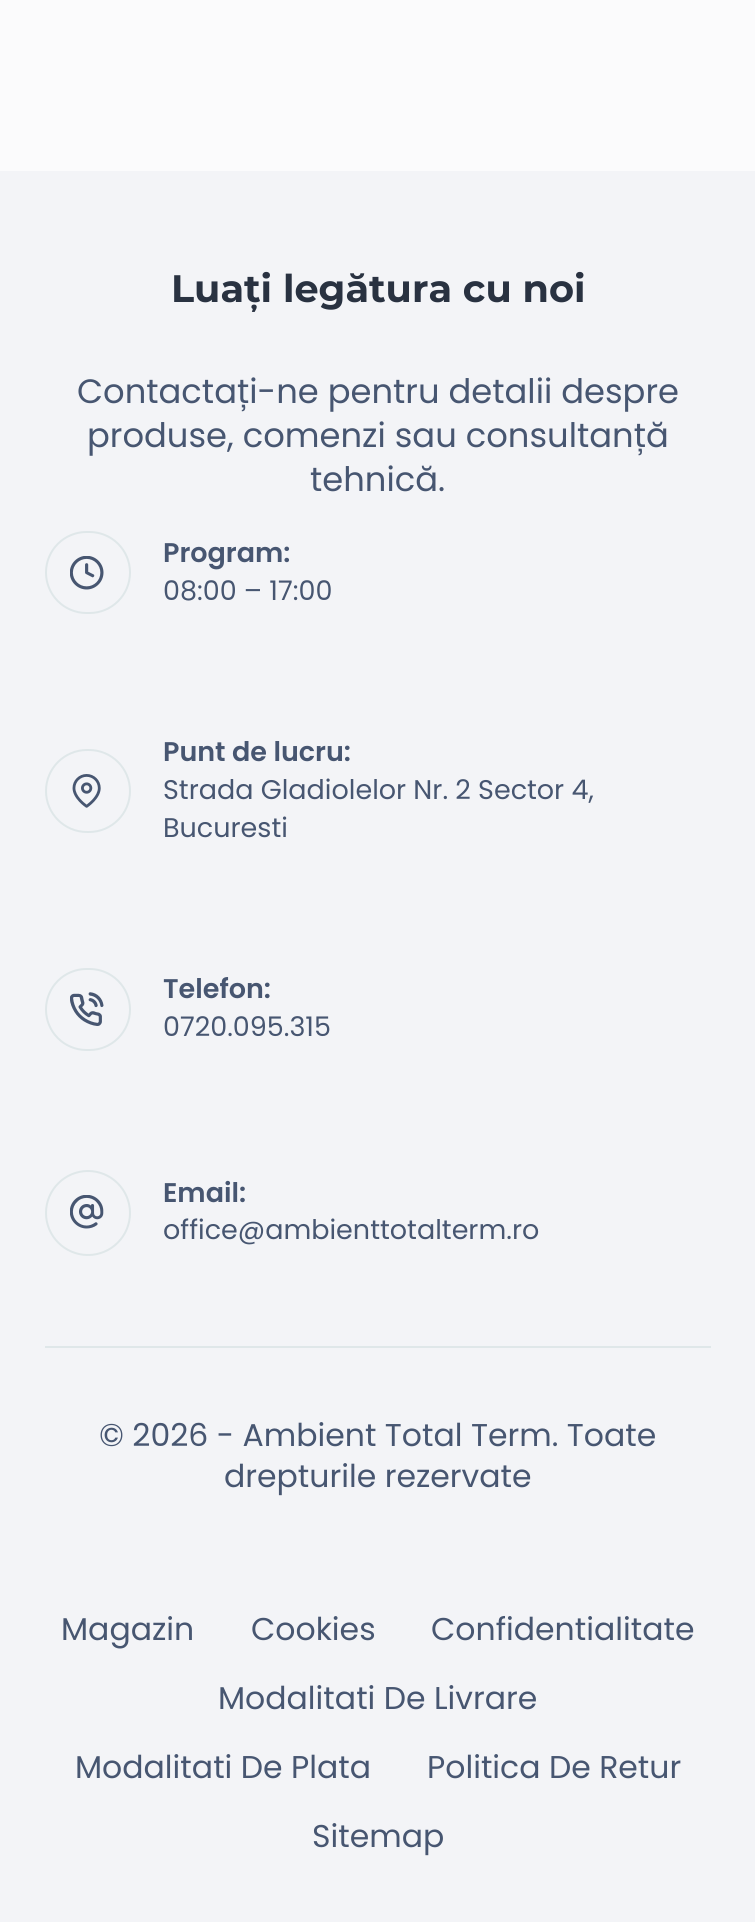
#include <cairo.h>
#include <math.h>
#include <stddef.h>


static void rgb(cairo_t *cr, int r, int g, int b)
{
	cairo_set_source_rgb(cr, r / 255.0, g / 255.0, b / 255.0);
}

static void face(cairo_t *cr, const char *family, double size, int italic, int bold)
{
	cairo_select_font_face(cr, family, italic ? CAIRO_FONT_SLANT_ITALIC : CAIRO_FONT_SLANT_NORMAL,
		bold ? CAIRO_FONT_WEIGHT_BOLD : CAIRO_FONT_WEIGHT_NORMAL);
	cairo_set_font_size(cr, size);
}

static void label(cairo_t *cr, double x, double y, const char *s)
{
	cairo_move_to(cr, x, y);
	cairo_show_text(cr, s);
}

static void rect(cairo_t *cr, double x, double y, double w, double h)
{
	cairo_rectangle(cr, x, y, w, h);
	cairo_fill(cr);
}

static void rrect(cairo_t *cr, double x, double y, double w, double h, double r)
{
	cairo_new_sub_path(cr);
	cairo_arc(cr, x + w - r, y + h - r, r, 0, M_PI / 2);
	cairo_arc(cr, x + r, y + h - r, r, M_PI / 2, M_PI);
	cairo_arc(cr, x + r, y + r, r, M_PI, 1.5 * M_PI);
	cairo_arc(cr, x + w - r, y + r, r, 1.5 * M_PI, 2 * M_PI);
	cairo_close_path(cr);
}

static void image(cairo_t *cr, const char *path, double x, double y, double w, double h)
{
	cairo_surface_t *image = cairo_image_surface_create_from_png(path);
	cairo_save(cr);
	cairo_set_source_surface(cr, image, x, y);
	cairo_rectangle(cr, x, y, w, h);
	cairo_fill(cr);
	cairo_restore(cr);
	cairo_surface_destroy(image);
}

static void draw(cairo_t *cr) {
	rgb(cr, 251, 251, 252);
	cairo_paint(cr);
	rgb(cr, 243, 244, 247);
	rect(cr, 0, 171, 755, 1751);
	rgb(cr, 223, 231, 233);
	rect(cr, 45, 1346, 666, 2);
	face(cr, "Montserrat", 38.25, 0, 1);
	rgb(cr, 41, 50, 65);
	label(cr, 171, 302, "Luați legătura cu noi");
	face(cr, "Poppins", 33.75, 0, 0);
	rgb(cr, 71, 86, 113);
	label(cr, 77, 403, "Contactați-ne pentru detalii despre");
	label(cr, 87, 447, "produse, comenzi sau consultanță");
	label(cr, 310, 491, "tehnică.");
	rrect(cr, 46, 532, 84, 81, 40.5);
	rgb(cr, 223, 231, 233);
	cairo_stroke(cr);
	image(cr, "image0.png", 70, 556, 34, 34);
	face(cr, "Poppins SemiBold", 27, 0, 0);
	rgb(cr, 71, 86, 113);
	label(cr, 163, 562, "Program:");
	face(cr, "Poppins", 27, 0, 0);
	label(cr, 163, 600, "08:00 – 17:00");
	rrect(cr, 46, 750, 84, 82, 41);
	rgb(cr, 223, 231, 233);
	cairo_stroke(cr);
	image(cr, "image1.png", 72, 774, 29, 34);
	face(cr, "Poppins SemiBold", 27, 0, 0);
	rgb(cr, 71, 86, 113);
	label(cr, 163, 761, "Punt de lucru:");
	face(cr, "Poppins", 27, 0, 0);
	label(cr, 163, 799, "Strada Gladiolelor Nr. 2 Sector 4,");
	label(cr, 163, 837, "Bucuresti");
	rrect(cr, 46, 969, 84, 81, 40.5);
	rgb(cr, 223, 231, 233);
	cairo_stroke(cr);
	image(cr, "image2.png", 70, 992, 34, 34);
	face(cr, "Poppins SemiBold", 27, 0, 0);
	rgb(cr, 71, 86, 113);
	label(cr, 163, 998, "Telefon:");
	face(cr, "Poppins", 27, 0, 0);
	label(cr, 163, 1036, "0720.095.315");
	cairo_new_path(cr);
	cairo_arc(cr, 88, 1213, 42, 0, 2 * M_PI);
	rgb(cr, 223, 231, 233);
	cairo_stroke(cr);
	image(cr, "image3.png", 70, 1195, 34, 34);
	face(cr, "Poppins SemiBold", 27, 0, 0);
	rgb(cr, 71, 86, 113);
	label(cr, 163, 1202, "Email:");
	face(cr, "Poppins", 27, 0, 0);
	label(cr, 163, 1239, "office@ambienttotalterm.ro");
	face(cr, "Poppins", 31.5, 0, 0);
	label(cr, 99, 1446, "© 2026 - Ambient Total Term. Toate");
	label(cr, 224, 1487, "drepturile rezervate");
	label(cr, 61, 1640, "Magazin");
	label(cr, 251, 1640, "Cookies");
	label(cr, 431, 1640, "Confidentialitate");
	label(cr, 218, 1709, "Modalitati De Livrare");
	label(cr, 75, 1778, "Modalitati De Plata");
	label(cr, 427, 1778, "Politica De Retur");
	label(cr, 312, 1847, "Sitemap");
}

int main(void) {
	cairo_surface_t *surface = cairo_image_surface_create(CAIRO_FORMAT_RGB24, 755, 1922);
	cairo_t *cr = cairo_create(surface);
	cairo_font_options_t *options = cairo_font_options_create();
	cairo_font_options_set_hint_metrics(options, CAIRO_HINT_METRICS_OFF);
	cairo_font_options_set_hint_style(options, CAIRO_HINT_STYLE_NONE);
	cairo_set_font_options(cr, options);
	cairo_set_miter_limit(cr, 4);
	draw(cr);
	cairo_surface_write_to_png(surface, "render.png");
	cairo_font_options_destroy(options);
	cairo_destroy(cr);
	cairo_surface_destroy(surface);
	return 0;
}
